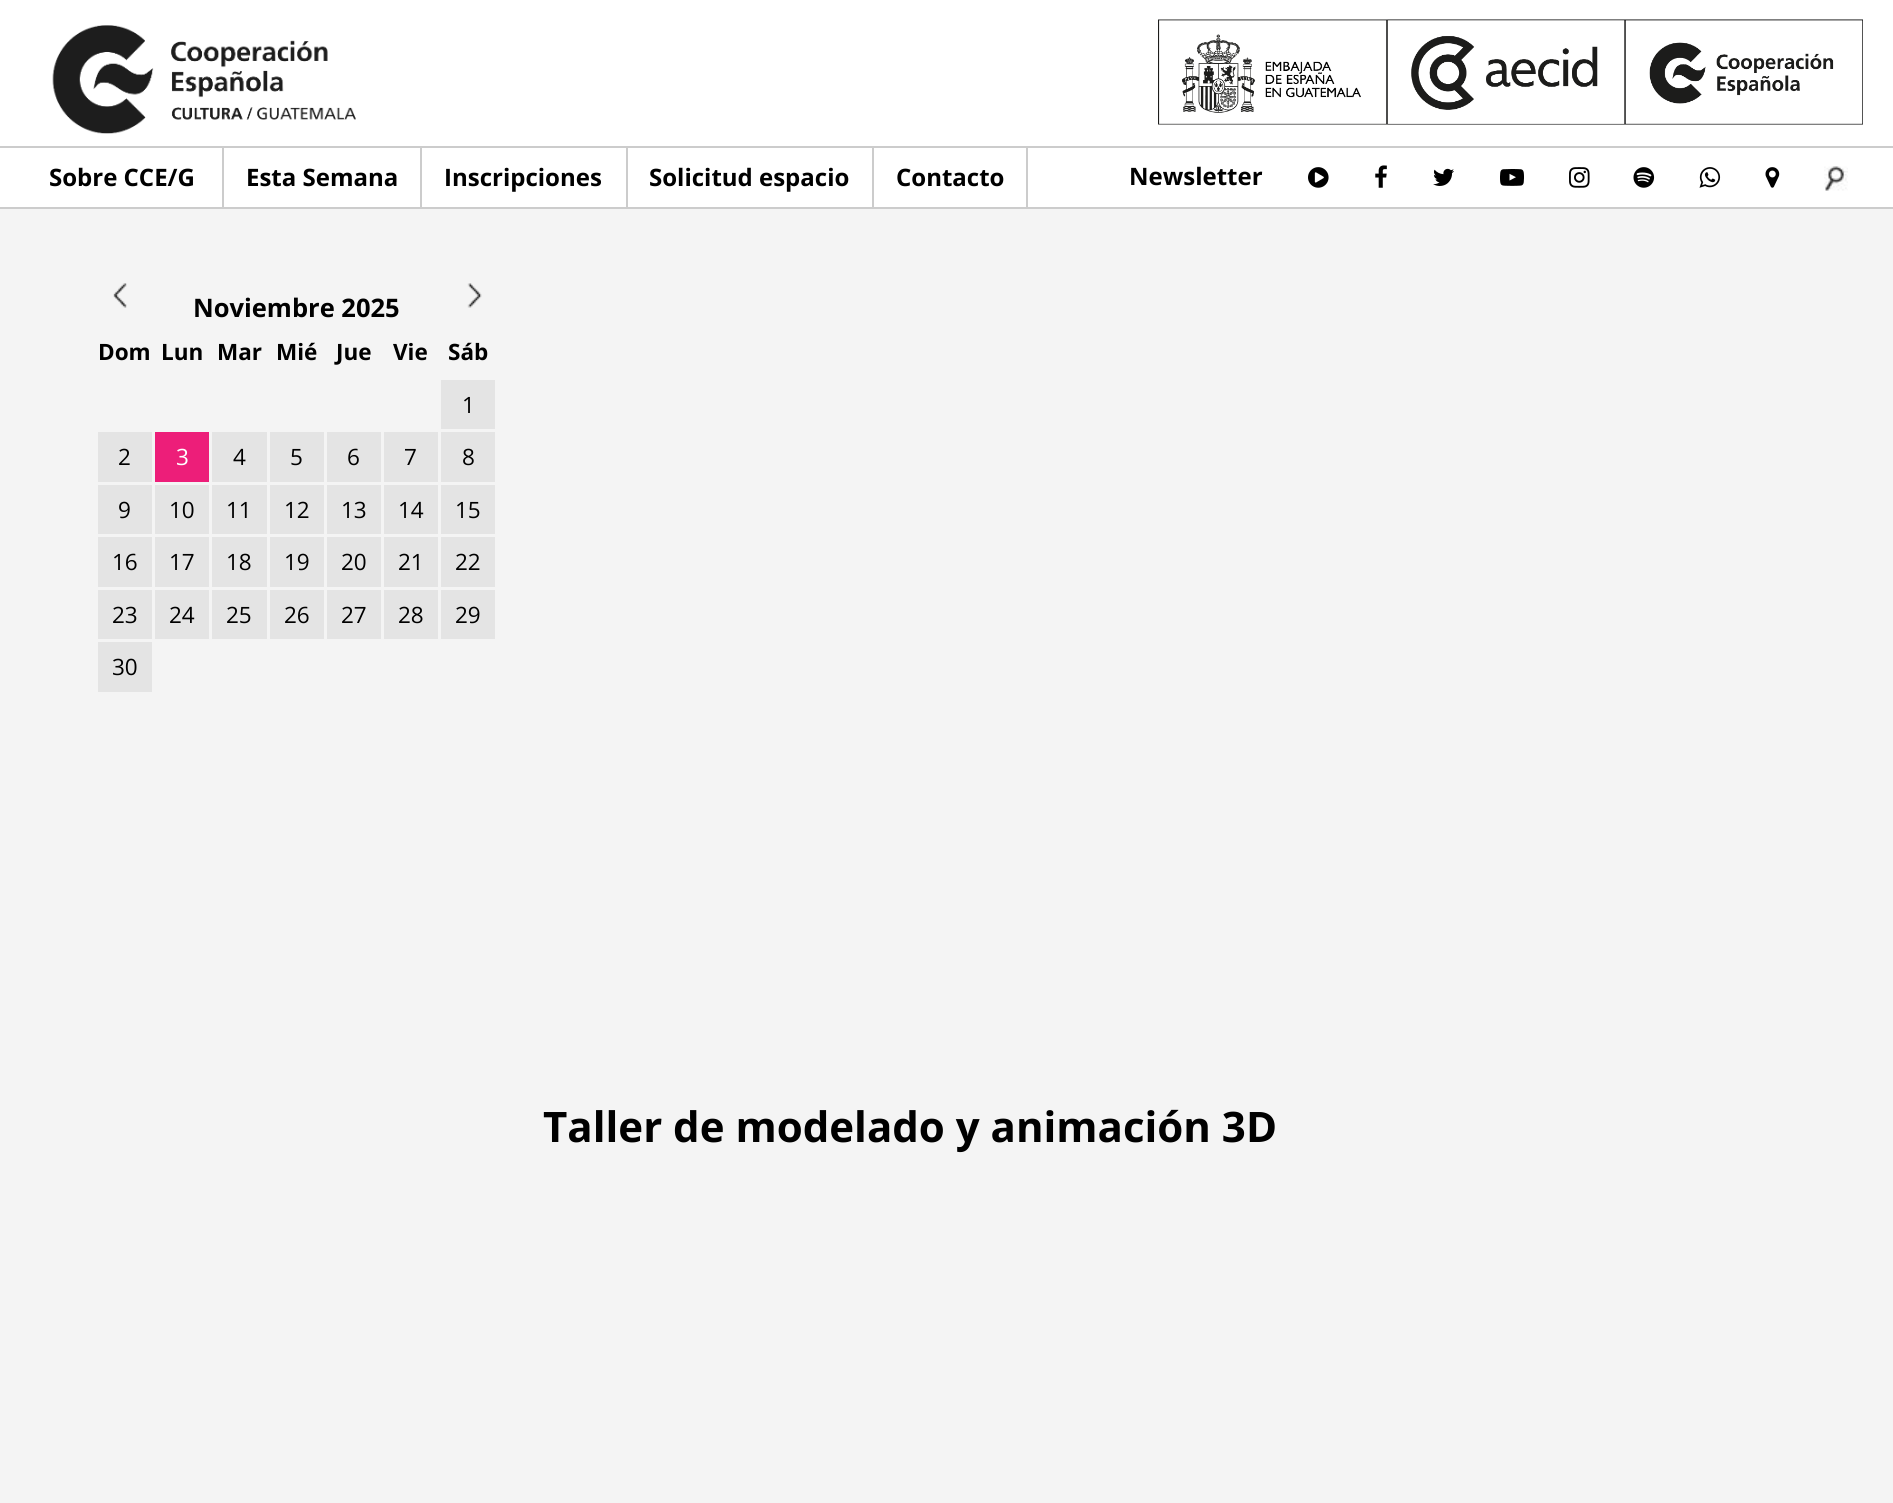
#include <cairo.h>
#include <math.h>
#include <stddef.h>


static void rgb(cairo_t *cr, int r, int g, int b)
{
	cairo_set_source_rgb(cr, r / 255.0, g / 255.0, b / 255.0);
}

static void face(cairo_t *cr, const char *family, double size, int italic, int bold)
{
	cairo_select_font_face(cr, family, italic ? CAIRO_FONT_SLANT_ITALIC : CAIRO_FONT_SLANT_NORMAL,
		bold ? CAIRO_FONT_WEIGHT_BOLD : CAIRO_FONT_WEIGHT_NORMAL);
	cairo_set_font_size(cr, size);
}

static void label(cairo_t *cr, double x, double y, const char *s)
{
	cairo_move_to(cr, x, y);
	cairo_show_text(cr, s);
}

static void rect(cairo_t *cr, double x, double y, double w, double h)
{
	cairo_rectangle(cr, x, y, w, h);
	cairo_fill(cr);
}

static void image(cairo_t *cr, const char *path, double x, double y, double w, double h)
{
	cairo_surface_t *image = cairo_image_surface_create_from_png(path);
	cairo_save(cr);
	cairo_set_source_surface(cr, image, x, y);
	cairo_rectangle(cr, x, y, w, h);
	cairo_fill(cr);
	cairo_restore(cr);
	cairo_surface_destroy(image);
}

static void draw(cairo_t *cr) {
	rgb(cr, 255, 255, 255);
	cairo_paint(cr);
	image(cr, "image0.png", 52, 25, 304, 109);
	image(cr, "image1.png", 1158, 19, 705, 106);
	rgb(cr, 204, 204, 204);
	rect(cr, 0, 146, 1893, 2);
	rect(cr, 0, 207, 1893, 2);
	rect(cr, 222, 147, 2, 60);
	face(cr, "Open Sans", 24, 0, 1);
	rgb(cr, 0, 0, 0);
	label(cr, 49, 186, "Sobre CCE/G");
	rgb(cr, 204, 204, 204);
	rect(cr, 420, 147, 2, 60);
	rgb(cr, 0, 0, 0);
	label(cr, 246, 186, "Esta Semana");
	rgb(cr, 204, 204, 204);
	rect(cr, 626, 147, 2, 60);
	rgb(cr, 0, 0, 0);
	label(cr, 444, 186, "Inscripciones");
	rgb(cr, 204, 204, 204);
	rect(cr, 872, 147, 2, 60);
	rgb(cr, 0, 0, 0);
	label(cr, 649, 186, "Solicitud espacio");
	rgb(cr, 204, 204, 204);
	rect(cr, 1026, 147, 2, 60);
	rgb(cr, 0, 0, 0);
	label(cr, 896, 186, "Contacto");
	label(cr, 1129, 185, "Newsletter");
	image(cr, "image2.png", 1308, 167, 21, 21);
	image(cr, "image3.png", 1375, 165, 12, 23);
	image(cr, "image4.png", 1433, 168, 21, 18);
	image(cr, "image5.png", 1500, 169, 24, 17);
	image(cr, "image6.png", 1569, 167, 21, 21);
	image(cr, "image7.png", 1633, 167, 22, 21);
	image(cr, "image8.png", 1699, 167, 22, 21);
	image(cr, "image9.png", 1765, 167, 15, 21);
	image(cr, "image10.png", 1824, 166, 24, 25);
	rgb(cr, 244, 244, 244);
	rect(cr, 0, 209, 1893, 1294);
	image(cr, "image11.png", 113, 283, 14, 25);
	face(cr, "Open Sans", 25.5, 0, 1);
	rgb(cr, 0, 0, 0);
	label(cr, 193, 317, "Noviembre 2025");
	image(cr, "image12.png", 467, 283, 15, 25);
	face(cr, "Open Sans", 22.5, 0, 1);
	label(cr, 98, 360, "Dom");
	label(cr, 161, 360, "Lun");
	label(cr, 217, 360, "Mar");
	label(cr, 276, 360, "Mié");
	label(cr, 336, 360, "Jue");
	label(cr, 393, 360, "Vie");
	label(cr, 448, 360, "Sáb");
	rgb(cr, 228, 228, 228);
	rect(cr, 441, 380, 54, 49);
	face(cr, "Open Sans", 22.5, 0, 0);
	rgb(cr, 0, 0, 0);
	label(cr, 462, 413, "1");
	rgb(cr, 228, 228, 228);
	rect(cr, 98, 432, 54, 50);
	rgb(cr, 0, 0, 0);
	label(cr, 118, 465, "2");
	rgb(cr, 237, 30, 121);
	rect(cr, 155, 432, 54, 50);
	rgb(cr, 255, 255, 255);
	label(cr, 176, 465, "3");
	rgb(cr, 228, 228, 228);
	rect(cr, 212, 432, 55, 50);
	rgb(cr, 0, 0, 0);
	label(cr, 233, 465, "4");
	rgb(cr, 228, 228, 228);
	rect(cr, 270, 432, 54, 50);
	rgb(cr, 0, 0, 0);
	label(cr, 290, 465, "5");
	rgb(cr, 228, 228, 228);
	rect(cr, 327, 432, 54, 50);
	rgb(cr, 0, 0, 0);
	label(cr, 347, 465, "6");
	rgb(cr, 228, 228, 228);
	rect(cr, 384, 432, 54, 50);
	rgb(cr, 0, 0, 0);
	label(cr, 404, 465, "7");
	rgb(cr, 228, 228, 228);
	rect(cr, 441, 432, 54, 50);
	rgb(cr, 0, 0, 0);
	label(cr, 462, 465, "8");
	rgb(cr, 228, 228, 228);
	rect(cr, 98, 485, 54, 49);
	rgb(cr, 0, 0, 0);
	label(cr, 118, 518, "9");
	rgb(cr, 228, 228, 228);
	rect(cr, 155, 485, 54, 49);
	rgb(cr, 0, 0, 0);
	label(cr, 169, 518, "10");
	rgb(cr, 228, 228, 228);
	rect(cr, 212, 485, 55, 49);
	rgb(cr, 0, 0, 0);
	label(cr, 226, 518, "11");
	rgb(cr, 228, 228, 228);
	rect(cr, 270, 485, 54, 49);
	rgb(cr, 0, 0, 0);
	label(cr, 284, 518, "12");
	rgb(cr, 228, 228, 228);
	rect(cr, 327, 485, 54, 49);
	rgb(cr, 0, 0, 0);
	label(cr, 341, 518, "13");
	rgb(cr, 228, 228, 228);
	rect(cr, 384, 485, 54, 49);
	rgb(cr, 0, 0, 0);
	label(cr, 398, 518, "14");
	rgb(cr, 228, 228, 228);
	rect(cr, 441, 485, 54, 49);
	rgb(cr, 0, 0, 0);
	label(cr, 455, 518, "15");
	rgb(cr, 228, 228, 228);
	rect(cr, 98, 537, 54, 50);
	rgb(cr, 0, 0, 0);
	label(cr, 112, 570, "16");
	rgb(cr, 228, 228, 228);
	rect(cr, 155, 537, 54, 50);
	rgb(cr, 0, 0, 0);
	label(cr, 169, 570, "17");
	rgb(cr, 228, 228, 228);
	rect(cr, 212, 537, 55, 50);
	rgb(cr, 0, 0, 0);
	label(cr, 226, 570, "18");
	rgb(cr, 228, 228, 228);
	rect(cr, 270, 537, 54, 50);
	rgb(cr, 0, 0, 0);
	label(cr, 284, 570, "19");
	rgb(cr, 228, 228, 228);
	rect(cr, 327, 537, 54, 50);
	rgb(cr, 0, 0, 0);
	label(cr, 341, 570, "20");
	rgb(cr, 228, 228, 228);
	rect(cr, 384, 537, 54, 50);
	rgb(cr, 0, 0, 0);
	label(cr, 398, 570, "21");
	rgb(cr, 228, 228, 228);
	rect(cr, 441, 537, 54, 50);
	rgb(cr, 0, 0, 0);
	label(cr, 455, 570, "22");
	rgb(cr, 228, 228, 228);
	rect(cr, 98, 590, 54, 49);
	rgb(cr, 0, 0, 0);
	label(cr, 112, 623, "23");
	rgb(cr, 228, 228, 228);
	rect(cr, 155, 590, 54, 49);
	rgb(cr, 0, 0, 0);
	label(cr, 169, 623, "24");
	rgb(cr, 228, 228, 228);
	rect(cr, 212, 590, 55, 49);
	rgb(cr, 0, 0, 0);
	label(cr, 226, 623, "25");
	rgb(cr, 228, 228, 228);
	rect(cr, 270, 590, 54, 49);
	rgb(cr, 0, 0, 0);
	label(cr, 284, 623, "26");
	rgb(cr, 228, 228, 228);
	rect(cr, 327, 590, 54, 49);
	rgb(cr, 0, 0, 0);
	label(cr, 341, 623, "27");
	rgb(cr, 228, 228, 228);
	rect(cr, 384, 590, 54, 49);
	rgb(cr, 0, 0, 0);
	label(cr, 398, 623, "28");
	rgb(cr, 228, 228, 228);
	rect(cr, 441, 590, 54, 49);
	rgb(cr, 0, 0, 0);
	label(cr, 455, 623, "29");
	rgb(cr, 228, 228, 228);
	rect(cr, 98, 642, 54, 50);
	rgb(cr, 0, 0, 0);
	label(cr, 112, 675, "30");
	face(cr, "Open Sans", 42, 0, 1);
	label(cr, 543, 1142, "Taller de modelado y animación 3D");
}

int main(void) {
	cairo_surface_t *surface = cairo_image_surface_create(CAIRO_FORMAT_RGB24, 1893, 1503);
	cairo_t *cr = cairo_create(surface);
	cairo_font_options_t *options = cairo_font_options_create();
	cairo_font_options_set_hint_metrics(options, CAIRO_HINT_METRICS_OFF);
	cairo_font_options_set_hint_style(options, CAIRO_HINT_STYLE_NONE);
	cairo_set_font_options(cr, options);
	cairo_set_miter_limit(cr, 4);
	draw(cr);
	cairo_surface_write_to_png(surface, "render.png");
	cairo_font_options_destroy(options);
	cairo_destroy(cr);
	cairo_surface_destroy(surface);
	return 0;
}
